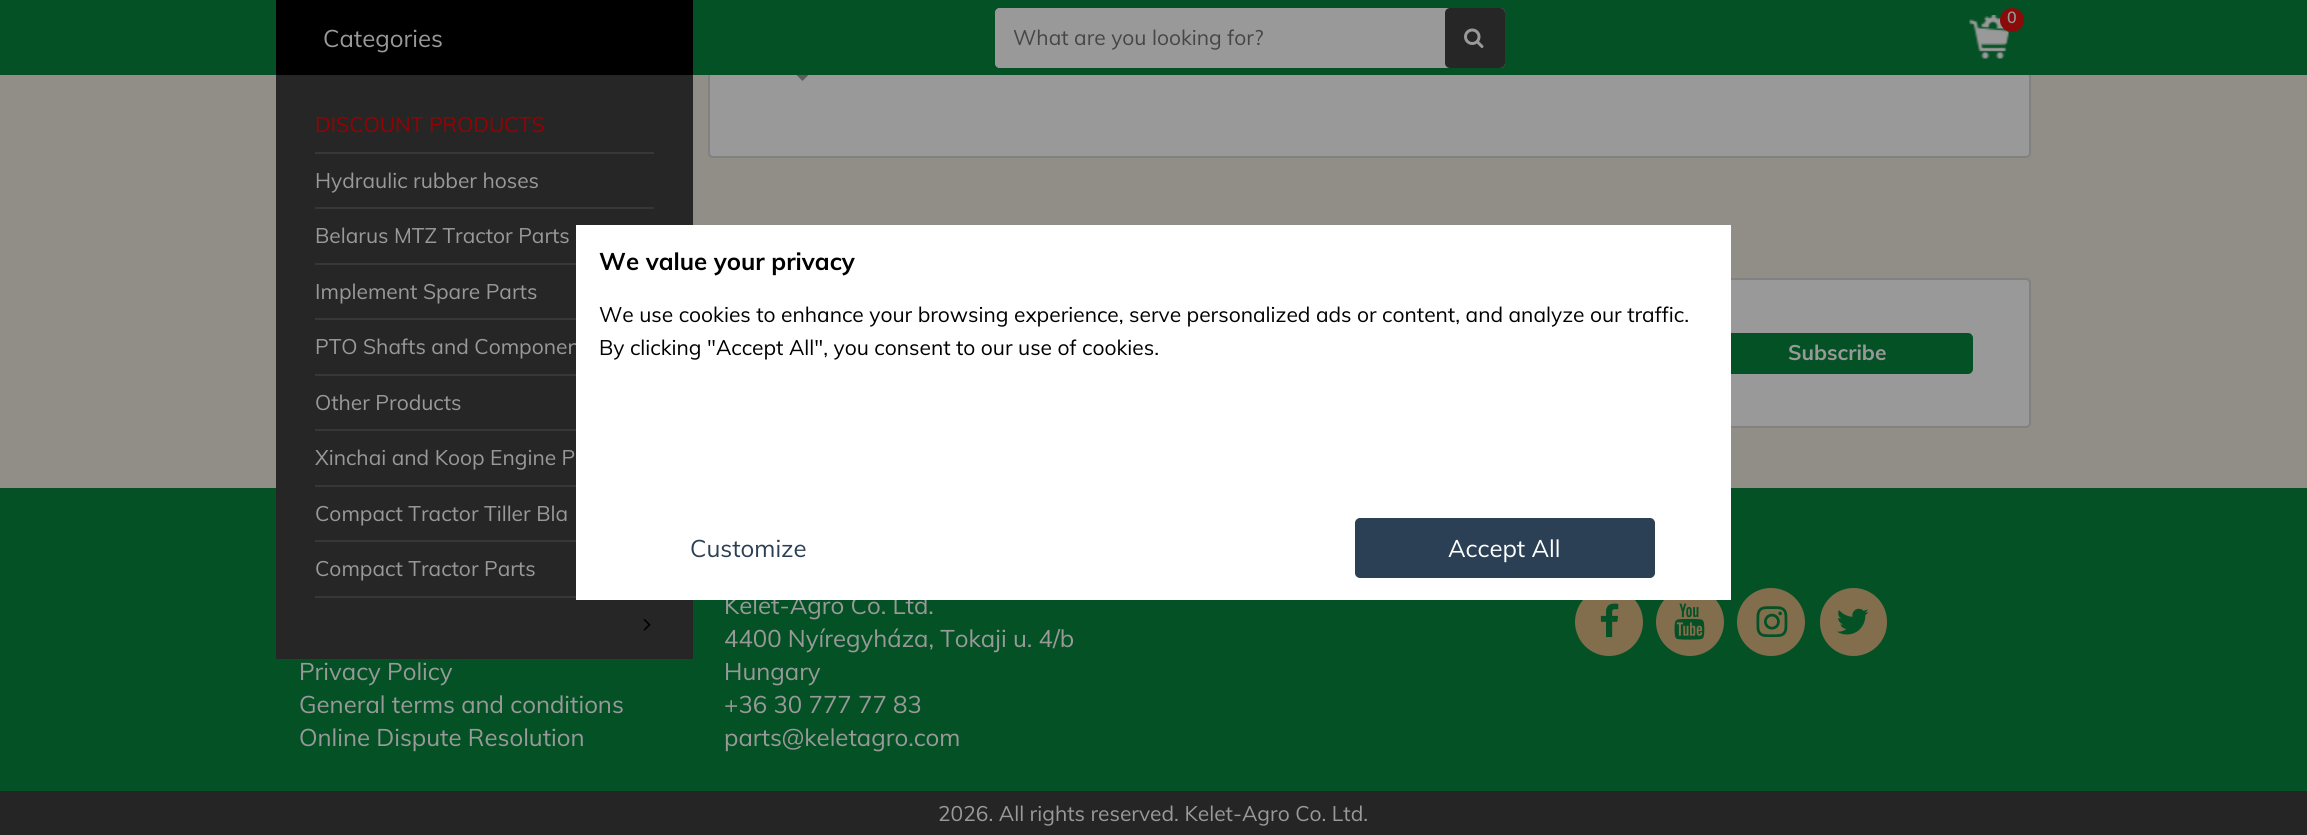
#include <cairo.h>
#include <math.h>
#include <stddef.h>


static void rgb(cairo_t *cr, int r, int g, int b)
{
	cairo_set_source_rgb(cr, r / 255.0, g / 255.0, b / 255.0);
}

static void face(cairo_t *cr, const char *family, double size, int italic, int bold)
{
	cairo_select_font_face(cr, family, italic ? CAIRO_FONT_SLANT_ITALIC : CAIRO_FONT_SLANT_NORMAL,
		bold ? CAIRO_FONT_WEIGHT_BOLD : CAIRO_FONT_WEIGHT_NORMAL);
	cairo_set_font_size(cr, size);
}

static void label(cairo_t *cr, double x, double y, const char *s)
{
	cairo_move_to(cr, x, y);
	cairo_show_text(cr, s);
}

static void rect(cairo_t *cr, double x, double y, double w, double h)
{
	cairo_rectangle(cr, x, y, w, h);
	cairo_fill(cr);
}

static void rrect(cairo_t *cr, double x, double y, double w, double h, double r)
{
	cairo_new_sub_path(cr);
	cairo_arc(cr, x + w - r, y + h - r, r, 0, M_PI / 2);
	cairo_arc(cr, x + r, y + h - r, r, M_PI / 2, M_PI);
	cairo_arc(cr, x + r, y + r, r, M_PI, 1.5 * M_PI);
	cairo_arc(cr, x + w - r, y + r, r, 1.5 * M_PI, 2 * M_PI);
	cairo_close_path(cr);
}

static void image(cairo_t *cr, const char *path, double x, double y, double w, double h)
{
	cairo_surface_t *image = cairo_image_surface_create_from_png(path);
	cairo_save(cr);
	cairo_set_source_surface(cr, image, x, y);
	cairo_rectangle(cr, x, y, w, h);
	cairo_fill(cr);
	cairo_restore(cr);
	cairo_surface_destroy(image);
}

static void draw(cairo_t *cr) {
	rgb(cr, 145, 142, 136);
	cairo_paint(cr);
	rgb(cr, 153, 153, 153);
	rrect(cr, 709, -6, 1321, 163, 4);
	cairo_fill_preserve(cr);
	rgb(cr, 129, 129, 129);
	cairo_stroke(cr);
	rgb(cr, 92, 94, 95);
	cairo_new_path(cr);
	cairo_move_to(cr, 787.5, 66);
	cairo_line_to(cr, 817.5, 66);
	cairo_line_to(cr, 802.5, 81);
	cairo_close_path(cr);
	cairo_fill(cr);
	rgb(cr, 4, 81, 37);
	rect(cr, 0, 0, 2307, 75);
	image(cr, "image0.png", 1969, 15, 40, 44);
	rgb(cr, 139, 10, 10);
	cairo_arc(cr, 2012, 20, 12, 0, 2 * M_PI);
	cairo_fill(cr);
	face(cr, "Muli SemiBold", 16, 0, 0);
	rgb(cr, 153, 153, 153);
	label(cr, 2007, 23, "0");
	rgb(cr, 0, 0, 0);
	rect(cr, 276, 0, 417, 75);
	face(cr, "Muli", 24, 0, 0);
	rgb(cr, 153, 153, 153);
	label(cr, 323, 47, "Categories");
	rrect(cr, 277, 279, 1753, 148, 4);
	cairo_fill_preserve(cr);
	rgb(cr, 129, 129, 129);
	cairo_stroke(cr);
	rgb(cr, 4, 81, 37);
	rect(cr, 0, 488, 2307, 303);
	rgb(cr, 38, 38, 38);
	rect(cr, 276, 75, 417, 584);
	face(cr, "Muli", 21, 0, 0);
	rgb(cr, 153, 0, 0);
	label(cr, 315, 132, "DISCOUNT PRODUCTS");
	rgb(cr, 55, 55, 55);
	rect(cr, 315, 152, 339, 2);
	rgb(cr, 153, 153, 153);
	label(cr, 315, 188, "Hydraulic rubber hoses");
	rgb(cr, 55, 55, 55);
	rect(cr, 315, 207, 339, 2);
	rgb(cr, 153, 153, 153);
	label(cr, 315, 243, "Belarus MTZ Tractor Parts");
	rgb(cr, 55, 55, 55);
	rect(cr, 315, 263, 261, 2);
	rgb(cr, 153, 153, 153);
	label(cr, 315, 299, "Implement Spare Parts");
	rgb(cr, 55, 55, 55);
	rect(cr, 315, 318, 261, 2);
	rgb(cr, 153, 153, 153);
	label(cr, 315, 354, "PTO Shafts and Componen");
	rgb(cr, 55, 55, 55);
	rect(cr, 315, 374, 261, 2);
	rgb(cr, 153, 153, 153);
	label(cr, 315, 410, "Other Products");
	rgb(cr, 55, 55, 55);
	rect(cr, 315, 429, 261, 2);
	rgb(cr, 153, 153, 153);
	label(cr, 315, 465, "Xinchai and Koop Engine P");
	rgb(cr, 55, 55, 55);
	rect(cr, 315, 485, 261, 2);
	rgb(cr, 153, 153, 153);
	label(cr, 315, 521, "Compact Tractor Tiller Bla");
	rgb(cr, 55, 55, 55);
	rect(cr, 315, 540, 261, 2);
	rgb(cr, 153, 153, 153);
	label(cr, 315, 576, "Compact Tractor Parts");
	rgb(cr, 55, 55, 55);
	rect(cr, 315, 596, 261, 2);
	image(cr, "image1.png", 643, 619, 8, 12);
	rgb(cr, 153, 153, 153);
	rrect(cr, 995, 8, 510, 60, 5);
	cairo_fill(cr);
	rrect(cr, 995, 8, 450, 60, 5);
	cairo_fill(cr);
	rgb(cr, 70, 70, 70);
	label(cr, 1013, 45, "What are you looking for?");
	rgb(cr, 38, 38, 38);
	rrect(cr, 1445, 8, 60, 60, 5);
	cairo_fill(cr);
	image(cr, "image2.png", 1464, 28, 20, 20);
	rgb(cr, 4, 81, 37);
	rrect(cr, 1704, 334, 268, 39, 4);
	cairo_fill_preserve(cr);
	cairo_stroke(cr);
	face(cr, "Muli", 24, 0, 0);
	rgb(cr, 153, 153, 153);
	label(cr, 724, 614, "Kelet-Agro Co. Ltd.");
	rgb(cr, 130, 110, 77);
	cairo_new_path(cr);
	cairo_arc(cr, 1609, 622, 34, 0, 2 * M_PI);
	cairo_fill(cr);
	cairo_arc(cr, 1690, 622, 34, 0, 2 * M_PI);
	cairo_fill(cr);
	rgb(cr, 255, 255, 255);
	rect(cr, 576, 225, 1155, 375);
	face(cr, "Muli", 24, 0, 1);
	rgb(cr, 0, 0, 0);
	label(cr, 599, 270, "We value your privacy");
	face(cr, "Muli", 21, 0, 0);
	label(cr, 599, 322, "We use cookies to enhance your browsing experience, serve personalized ads or content, and analyze our traffic.");
	label(cr, 599, 355, "By clicking \"Accept All\", you consent to our use of cookies.");
	face(cr, "Muli", 24, 0, 0);
	rgb(cr, 44, 64, 85);
	label(cr, 690, 557, "Customize");
	rrect(cr, 1356, 519, 298, 58, 4);
	cairo_fill_preserve(cr);
	cairo_stroke(cr);
	rgb(cr, 255, 255, 255);
	label(cr, 1448, 557, "Accept All");
	face(cr, "Muli", 21, 0, 1);
	rgb(cr, 153, 153, 153);
	label(cr, 1788, 360, "Subscribe");
	face(cr, "Muli", 24, 0, 0);
	label(cr, 299, 680, "Privacy Policy");
	label(cr, 299, 713, "General terms and conditions");
	label(cr, 299, 746, "Online Dispute Resolution");
	label(cr, 724, 647, "4400 Nyíregyháza, Tokaji u. 4/b");
	label(cr, 724, 680, "Hungary");
	label(cr, 724, 713, "+36 30 777 77 83");
	label(cr, 724, 746, "parts@keletagro.com");
	image(cr, "image3.png", 1600, 603, 19, 35);
	image(cr, "image4.png", 1674, 603, 31, 37);
	rgb(cr, 130, 110, 77);
	cairo_arc(cr, 1771, 622, 34, 0, 2 * M_PI);
	cairo_fill(cr);
	image(cr, "image5.png", 1756, 606, 32, 32);
	rrect(cr, 1820, 588, 67, 68, 33.5);
	cairo_fill(cr);
	image(cr, "image6.png", 1837, 608, 32, 27);
	rgb(cr, 37, 37, 37);
	rect(cr, 0, 791, 2307, 44);
	face(cr, "Muli", 21, 0, 0);
	rgb(cr, 153, 153, 153);
	label(cr, 938, 821, "2026. All rights reserved. Kelet-Agro Co. Ltd.");
}

int main(void) {
	cairo_surface_t *surface = cairo_image_surface_create(CAIRO_FORMAT_RGB24, 2307, 835);
	cairo_t *cr = cairo_create(surface);
	cairo_font_options_t *options = cairo_font_options_create();
	cairo_font_options_set_hint_metrics(options, CAIRO_HINT_METRICS_OFF);
	cairo_font_options_set_hint_style(options, CAIRO_HINT_STYLE_NONE);
	cairo_set_font_options(cr, options);
	cairo_set_miter_limit(cr, 4);
	draw(cr);
	cairo_surface_write_to_png(surface, "render.png");
	cairo_font_options_destroy(options);
	cairo_destroy(cr);
	cairo_surface_destroy(surface);
	return 0;
}
